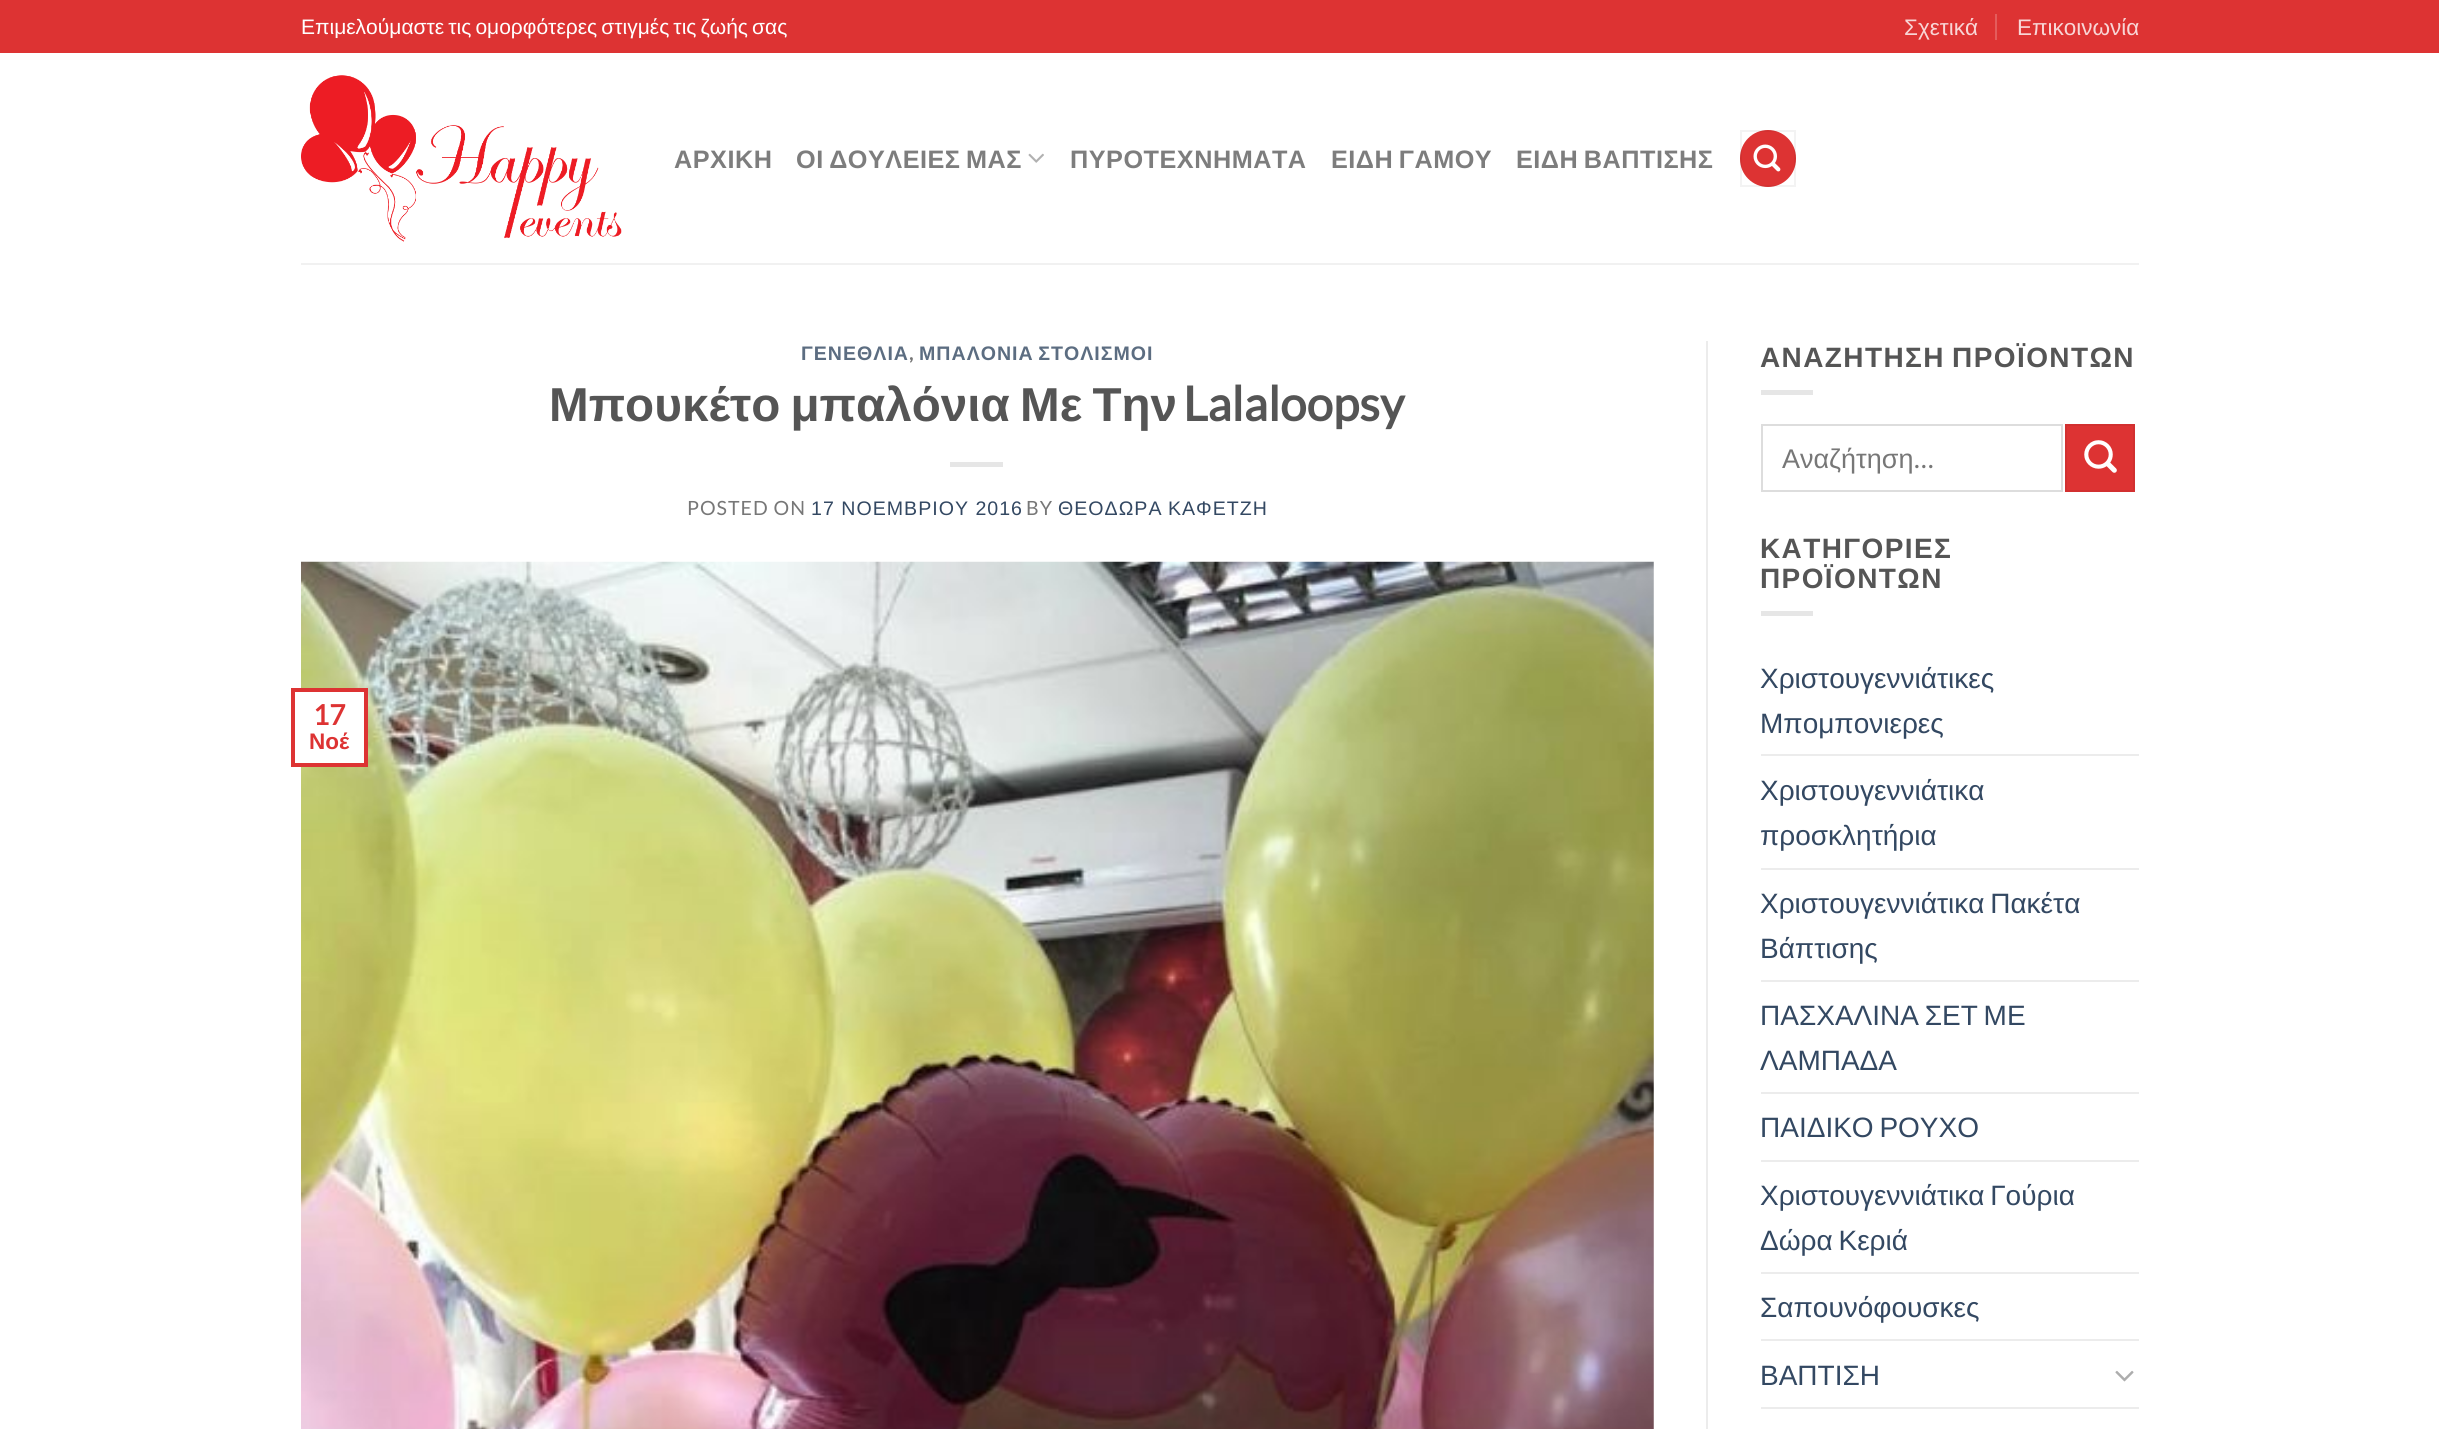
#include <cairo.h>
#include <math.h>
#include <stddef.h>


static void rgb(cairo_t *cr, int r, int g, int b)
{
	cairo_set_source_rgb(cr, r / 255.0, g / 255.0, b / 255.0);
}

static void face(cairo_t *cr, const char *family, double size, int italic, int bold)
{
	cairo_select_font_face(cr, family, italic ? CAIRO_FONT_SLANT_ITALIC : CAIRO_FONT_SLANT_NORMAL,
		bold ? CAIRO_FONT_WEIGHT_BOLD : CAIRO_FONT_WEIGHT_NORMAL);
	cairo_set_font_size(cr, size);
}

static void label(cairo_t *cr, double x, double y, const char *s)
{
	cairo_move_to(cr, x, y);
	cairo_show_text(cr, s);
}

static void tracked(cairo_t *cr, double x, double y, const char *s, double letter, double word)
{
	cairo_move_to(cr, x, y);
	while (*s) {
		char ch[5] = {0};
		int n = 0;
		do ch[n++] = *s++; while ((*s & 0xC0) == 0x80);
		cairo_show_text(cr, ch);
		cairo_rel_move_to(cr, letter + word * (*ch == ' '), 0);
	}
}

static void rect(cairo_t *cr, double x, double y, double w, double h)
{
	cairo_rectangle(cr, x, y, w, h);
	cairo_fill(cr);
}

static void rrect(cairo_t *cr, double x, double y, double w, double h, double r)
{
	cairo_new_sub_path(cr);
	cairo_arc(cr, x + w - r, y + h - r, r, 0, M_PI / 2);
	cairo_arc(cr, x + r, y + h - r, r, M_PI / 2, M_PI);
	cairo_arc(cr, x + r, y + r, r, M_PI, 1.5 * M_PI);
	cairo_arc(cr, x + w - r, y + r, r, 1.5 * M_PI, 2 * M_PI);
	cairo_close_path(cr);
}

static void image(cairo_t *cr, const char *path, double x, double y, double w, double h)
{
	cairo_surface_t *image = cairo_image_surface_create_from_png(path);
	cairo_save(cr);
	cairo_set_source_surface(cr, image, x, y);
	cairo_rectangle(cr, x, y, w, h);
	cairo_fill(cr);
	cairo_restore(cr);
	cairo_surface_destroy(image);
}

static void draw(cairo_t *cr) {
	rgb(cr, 255, 255, 255);
	cairo_paint(cr);
	rgb(cr, 221, 51, 51);
	rect(cr, 0, 0, 2439, 53);
	face(cr, "Liberation Sans", 21, 0, 0);
	rgb(cr, 255, 255, 255);
	tracked(cr, 301, 34, "Επιμελούμαστε τις ομορφότερες στιγμές τις ζωής σας", 0, -1.75);
	face(cr, "Liberation Sans", 22.5, 0, 0);
	rgb(cr, 248, 214, 214);
	label(cr, 1904, 35, "Σχετικά");
	rgb(cr, 228, 92, 92);
	rect(cr, 1995, 14, 2, 26);
	rgb(cr, 248, 214, 214);
	label(cr, 2017, 35, "Επικοινωνία");
	image(cr, "image0.png", 301, 75, 321, 167);
	face(cr, "Liberation Sans", 25.25, 0, 1);
	rgb(cr, 125, 125, 125);
	tracked(cr, 674, 168, "ΑΡΧΙΚΗ", 0.5, 0);
	tracked(cr, 796, 168, "ΟΙ ΔΟΥΛΕΙΕΣ ΜΑΣ", 0.5, -2);
	image(cr, "image1.png", 1028, 153, 16, 10);
	tracked(cr, 1070, 168, "ΠΥΡΟΤΕΧΝΗΜΑΤΑ", 0.5, 0);
	tracked(cr, 1331, 168, "ΕΙΔΗ ΓΑΜΟΥ", 0.5, -2);
	tracked(cr, 1516, 168, "ΕΙΔΗ ΒΑΠΤΙΣΗΣ", 0.5, -2);
	rgb(cr, 221, 51, 51);
	rrect(cr, 1740, 130, 56, 57, 28);
	cairo_fill(cr);
	cairo_rectangle(cr, 1741, 131, 54, 55);
	cairo_set_source_rgba(cr, 0, 0, 0, 0.05);
	cairo_stroke(cr);
	image(cr, "image2.png", 1753, 144, 28, 28);
	rgb(cr, 241, 241, 241);
	rect(cr, 301, 263, 1838, 2);
	face(cr, "Liberation Sans", 19.6, 0, 1);
	rgb(cr, 92, 109, 129);
	tracked(cr, 801, 360, "ΓΕΝΕΘΛΙΑ", 1, 0);
	face(cr, "Lato", 19.6, 0, 1);
	rgb(cr, 119, 119, 119);
	tracked(cr, 909, 360, ",", 1, 0);
	face(cr, "Liberation Sans", 19.6, 0, 1);
	rgb(cr, 92, 109, 129);
	tracked(cr, 919, 360, "ΜΠΑΛΟΝΙΑ ΣΤΟΛΙΣΜΟΙ", 1, -2);
	face(cr, "Liberation Sans", 47.6, 0, 1);
	rgb(cr, 85, 85, 85);
	tracked(cr, 549, 421, "Μπουκέτο μπαλόνια Με Την", 0, -3);
	face(cr, "Lato", 47.6, 0, 1);
	label(cr, 1183, 421, "Lalaloopsy");
	rgb(cr, 230, 230, 230);
	rect(cr, 950, 462, 53, 5);
	face(cr, "Lato", 19.6, 0, 0);
	rgb(cr, 119, 119, 119);
	tracked(cr, 687, 515, "POSTED ON", 1, 0);
	face(cr, "Liberation Sans", 19.6, 0, 0);
	rgb(cr, 51, 72, 98);
	tracked(cr, 811, 515, "17 ΝΟΕΜΒΡΙΟΥ 2016", 1, 0);
	face(cr, "Lato", 19.6, 0, 0);
	rgb(cr, 119, 119, 119);
	tracked(cr, 1026, 515, "BY", 1, 0);
	face(cr, "Liberation Sans", 19.6, 0, 0);
	rgb(cr, 51, 72, 98);
	tracked(cr, 1058, 515, "ΘΕΟΔΩΡΑ ΚΑΦΕΤΖΗ", 1, -1);
	image(cr, "image3.png", 301, 561, 1353, 868);
	rgb(cr, 255, 255, 255);
	rect(cr, 301, 692, 63, 71);
	cairo_rectangle(cr, 293, 690, 73, 75);
	rgb(cr, 221, 51, 51);
	cairo_set_line_width(cr, 4);
	cairo_stroke(cr);
	face(cr, "Lato", 28, 0, 1);
	label(cr, 313, 725, "17");
	face(cr, "Liberation Sans", 22.5, 0, 1);
	label(cr, 309, 749, "Νοέ");
	rgb(cr, 236, 236, 236);
	rect(cr, 1706, 341, 2, 1088);
	face(cr, "Liberation Sans", 28, 0, 1);
	rgb(cr, 85, 85, 85);
	tracked(cr, 1760, 367, "ΑΝΑΖΗΤΗΣΗ ΠΡΟΪΟΝΤΩΝ", 1.4, -2);
	rgb(cr, 230, 230, 230);
	rect(cr, 1761, 390, 52, 5);
	cairo_rectangle(cr, 1762, 425, 300, 66);
	rgb(cr, 221, 221, 221);
	cairo_set_line_width(cr, 2);
	cairo_stroke(cr);
	face(cr, "Liberation Sans", 27, 0, 0);
	rgb(cr, 119, 119, 119);
	label(cr, 1782, 468, "Αναζήτηση");
	face(cr, "Lato", 27, 0, 0);
	label(cr, 1914, 468, "…");
	rgb(cr, 221, 51, 51);
	cairo_rectangle(cr, 2066, 425, 68, 66);
	cairo_fill_preserve(cr);
	rgb(cr, 210, 48, 48);
	cairo_stroke(cr);
	image(cr, "image4.png", 2084, 440, 33, 33);
	face(cr, "Liberation Sans", 28, 0, 1);
	rgb(cr, 85, 85, 85);
	tracked(cr, 1760, 558, "ΚΑΤΗΓΟΡΙΕΣ", 1.4, 0);
	tracked(cr, 1760, 588, "ΠΡΟΪΟΝΤΩΝ", 1.4, 0);
	rgb(cr, 230, 230, 230);
	rect(cr, 1761, 611, 52, 5);
	face(cr, "Liberation Sans", 28, 0, 0);
	rgb(cr, 51, 72, 98);
	label(cr, 1760, 688, "Χριστουγεννιάτικες");
	label(cr, 1760, 733, "Μπομπονιερες");
	rgb(cr, 236, 236, 236);
	rect(cr, 1761, 754, 378, 2);
	rgb(cr, 51, 72, 98);
	label(cr, 1760, 800, "Χριστουγεννιάτικα");
	label(cr, 1760, 845, "προσκλητήρια");
	rgb(cr, 236, 236, 236);
	rect(cr, 1761, 868, 378, 2);
	rgb(cr, 51, 72, 98);
	tracked(cr, 1760, 913, "Χριστουγεννιάτικα Πακέτα", 0, -2);
	label(cr, 1760, 958, "Βάπτισης");
	rgb(cr, 236, 236, 236);
	rect(cr, 1761, 980, 378, 2);
	rgb(cr, 51, 72, 98);
	tracked(cr, 1760, 1025, "ΠΑΣΧΑΛΙΝΑ ΣΕΤ ΜΕ", 0, -2);
	label(cr, 1760, 1070, "ΛΑΜΠΑΔΑ");
	rgb(cr, 236, 236, 236);
	rect(cr, 1761, 1092, 378, 2);
	rgb(cr, 51, 72, 98);
	tracked(cr, 1760, 1137, "ΠΑΙΔΙΚΟ ΡΟΥΧΟ", 0, -2);
	rgb(cr, 236, 236, 236);
	rect(cr, 1761, 1160, 378, 2);
	rgb(cr, 51, 72, 98);
	tracked(cr, 1760, 1205, "Χριστουγεννιάτικα Γούρια", 0, -2);
	tracked(cr, 1760, 1250, "Δώρα Κεριά", 0, -2);
	rgb(cr, 236, 236, 236);
	rect(cr, 1761, 1272, 378, 2);
	rgb(cr, 51, 72, 98);
	label(cr, 1760, 1317, "Σαπουνόφουσκες");
	rgb(cr, 236, 236, 236);
	rect(cr, 1761, 1339, 378, 2);
	rgb(cr, 51, 72, 98);
	label(cr, 1760, 1385, "ΒΑΠΤΙΣΗ");
	image(cr, "image5.png", 2115, 1370, 19, 12);
	rgb(cr, 236, 236, 236);
	rect(cr, 1761, 1407, 378, 2);
}

int main(void) {
	cairo_surface_t *surface = cairo_image_surface_create(CAIRO_FORMAT_RGB24, 2439, 1429);
	cairo_t *cr = cairo_create(surface);
	cairo_font_options_t *options = cairo_font_options_create();
	cairo_font_options_set_hint_metrics(options, CAIRO_HINT_METRICS_OFF);
	cairo_font_options_set_hint_style(options, CAIRO_HINT_STYLE_NONE);
	cairo_set_font_options(cr, options);
	cairo_set_miter_limit(cr, 4);
	draw(cr);
	cairo_surface_write_to_png(surface, "render.png");
	cairo_font_options_destroy(options);
	cairo_destroy(cr);
	cairo_surface_destroy(surface);
	return 0;
}
